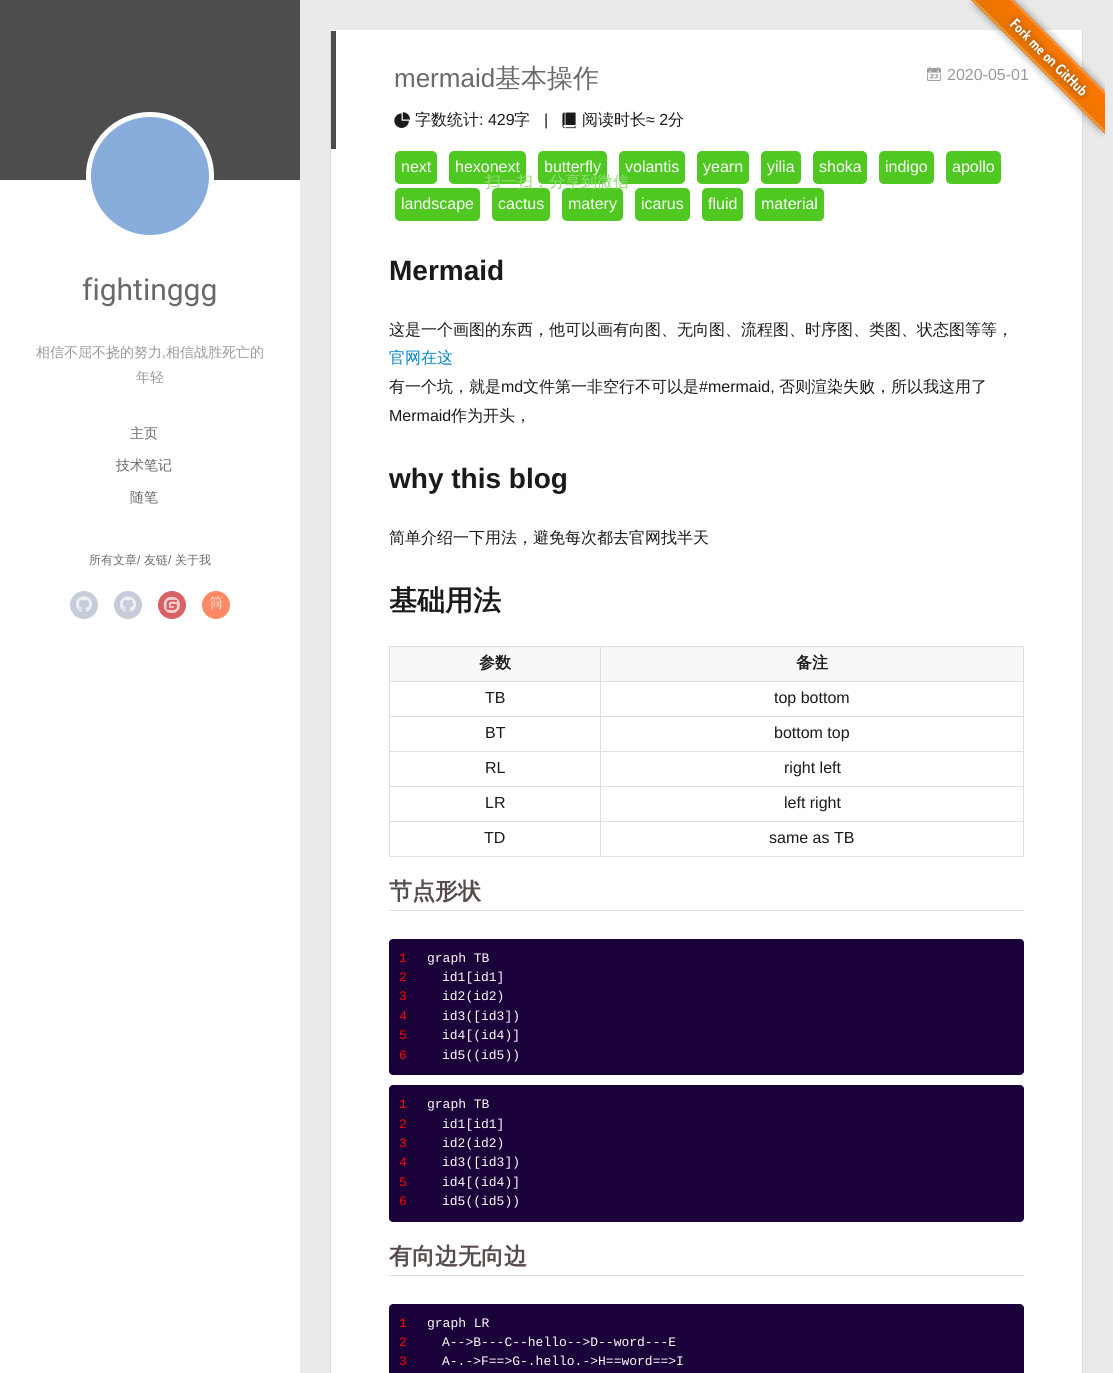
#include <cairo.h>
#include <math.h>
#include <stddef.h>


static void rgb(cairo_t *cr, int r, int g, int b)
{
	cairo_set_source_rgb(cr, r / 255.0, g / 255.0, b / 255.0);
}

static void face(cairo_t *cr, const char *family, double size, int italic, int bold)
{
	cairo_select_font_face(cr, family, italic ? CAIRO_FONT_SLANT_ITALIC : CAIRO_FONT_SLANT_NORMAL,
		bold ? CAIRO_FONT_WEIGHT_BOLD : CAIRO_FONT_WEIGHT_NORMAL);
	cairo_set_font_size(cr, size);
}

static void label(cairo_t *cr, double x, double y, const char *s)
{
	cairo_move_to(cr, x, y);
	cairo_show_text(cr, s);
}

static void rect(cairo_t *cr, double x, double y, double w, double h)
{
	cairo_rectangle(cr, x, y, w, h);
	cairo_fill(cr);
}

static void rrect(cairo_t *cr, double x, double y, double w, double h, double r)
{
	cairo_new_sub_path(cr);
	cairo_arc(cr, x + w - r, y + h - r, r, 0, M_PI / 2);
	cairo_arc(cr, x + r, y + h - r, r, M_PI / 2, M_PI);
	cairo_arc(cr, x + r, y + r, r, M_PI, 1.5 * M_PI);
	cairo_arc(cr, x + w - r, y + r, r, 1.5 * M_PI, 2 * M_PI);
	cairo_close_path(cr);
}

static void image(cairo_t *cr, const char *path, double x, double y, double w, double h)
{
	cairo_surface_t *image = cairo_image_surface_create_from_png(path);
	cairo_save(cr);
	cairo_set_source_surface(cr, image, x, y);
	cairo_rectangle(cr, x, y, w, h);
	cairo_fill(cr);
	cairo_restore(cr);
	cairo_surface_destroy(image);
}

static void draw(cairo_t *cr) {
	rgb(cr, 234, 234, 234);
	cairo_paint(cr);
	rgb(cr, 255, 255, 255);
	rect(cr, 0, 180, 300, 1193);
	rgb(cr, 77, 77, 77);
	rect(cr, 0, 0, 300, 180);
	rgb(cr, 136, 172, 219);
	cairo_arc(cr, 150, 176, 61.5, 0, 2 * M_PI);
	cairo_fill_preserve(cr);
	rgb(cr, 255, 255, 255);
	cairo_set_line_width(cr, 5);
	cairo_stroke(cr);
	face(cr, "Roboto", 30, 0, 0);
	rgb(cr, 105, 105, 105);
	label(cr, 82, 300, "fightinggg");
	face(cr, "WenQuanYi Zen Hei Medium", 14, 0, 0);
	rgb(cr, 153, 153, 153);
	label(cr, 36, 357, "相信不屈不挠的努力");
	face(cr, "Liberation Sans", 14, 0, 0);
	label(cr, 162, 357, ",");
	face(cr, "WenQuanYi Zen Hei Medium", 14, 0, 0);
	label(cr, 166, 357, "相信战胜死亡的");
	label(cr, 136, 382, "年轻");
	rgb(cr, 105, 105, 105);
	label(cr, 130, 438, "主页");
	label(cr, 116, 470, "技术笔记");
	label(cr, 130, 502, "随笔");
	face(cr, "WenQuanYi Zen Hei Medium", 12, 0, 0);
	label(cr, 89, 564, "所有文章");
	face(cr, "Liberation Sans", 12, 0, 0);
	label(cr, 137, 564, "/");
	face(cr, "WenQuanYi Zen Hei Medium", 12, 0, 0);
	label(cr, 144, 564, "友链");
	face(cr, "Liberation Sans", 12, 0, 0);
	label(cr, 168, 564, "/");
	face(cr, "WenQuanYi Zen Hei Medium", 12, 0, 0);
	label(cr, 175, 564, "关于我");
	rgb(cr, 199, 204, 218);
	cairo_new_path(cr);
	cairo_arc(cr, 84, 605, 13.5, 0, 2 * M_PI);
	cairo_fill_preserve(cr);
	cairo_set_line_width(cr, 1);
	cairo_stroke(cr);
	image(cr, "image0.png", 76, 596, 16, 16);
	cairo_arc(cr, 128, 605, 13.5, 0, 2 * M_PI);
	cairo_fill_preserve(cr);
	cairo_stroke(cr);
	image(cr, "image0.png", 120, 596, 16, 16);
	rgb(cr, 216, 97, 101);
	cairo_arc(cr, 172, 605, 13.5, 0, 2 * M_PI);
	cairo_fill_preserve(cr);
	cairo_stroke(cr);
	image(cr, "image1.png", 163, 596, 17, 17);
	rgb(cr, 255, 137, 100);
	cairo_arc(cr, 216, 605, 13.5, 0, 2 * M_PI);
	cairo_fill_preserve(cr);
	cairo_stroke(cr);
	image(cr, "image2.png", 209, 596, 13, 14);
	rgb(cr, 255, 255, 255);
	rect(cr, 331, 30, 751, 1343);
	rgb(cr, 221, 221, 221);
	rect(cr, 1082, 30, 1, 1343);
	rect(cr, 330, 30, 1, 1343);
	rgb(cr, 77, 77, 77);
	rect(cr, 331, 31, 5, 118);
	face(cr, "Liberation Sans", 26, 0, 0);
	rgb(cr, 105, 105, 105);
	label(cr, 394, 87, "mermaid");
	face(cr, "WenQuanYi Zen Hei Medium", 26, 0, 0);
	label(cr, 495, 87, "基本操作");
	image(cr, "image3.png", 927, 67, 14, 14);
	face(cr, "Liberation Sans", 16, 0, 0);
	rgb(cr, 153, 153, 153);
	label(cr, 947, 80, "2020-05-01");
	image(cr, "image4.png", 394, 112, 17, 16);
	face(cr, "WenQuanYi Zen Hei Medium", 16, 0, 0);
	rgb(cr, 26, 26, 26);
	label(cr, 415, 125, "字数统计");
	face(cr, "Liberation Sans", 16, 0, 0);
	label(cr, 479, 125, ": 429");
	face(cr, "WenQuanYi Zen Hei Medium", 16, 0, 0);
	label(cr, 514, 125, "字");
	face(cr, "Liberation Sans", 16, 0, 0);
	label(cr, 544, 125, "|");
	image(cr, "image5.png", 562, 112, 14, 17);
	face(cr, "WenQuanYi Zen Hei Medium", 16, 0, 0);
	label(cr, 582, 125, "阅读时长");
	face(cr, "Liberation Sans", 16, 0, 0);
	label(cr, 646, 125, "≈ 2");
	face(cr, "WenQuanYi Zen Hei Medium", 16, 0, 0);
	label(cr, 668, 125, "分");
	rgb(cr, 79, 201, 33);
	rrect(cr, 395, 151, 42, 33, 5);
	cairo_fill(cr);
	face(cr, "Liberation Sans", 16, 0, 0);
	rgb(cr, 255, 255, 255);
	label(cr, 401, 172, "next");
	rgb(cr, 79, 201, 33);
	rrect(cr, 449, 151, 77, 33, 5);
	cairo_fill(cr);
	rgb(cr, 255, 255, 255);
	label(cr, 455, 172, "hexonext");
	rgb(cr, 79, 201, 33);
	rrect(cr, 538, 151, 69, 33, 5);
	cairo_fill(cr);
	rgb(cr, 255, 255, 255);
	label(cr, 544, 172, "butterfly");
	rgb(cr, 79, 201, 33);
	rrect(cr, 619, 151, 66, 33, 5);
	cairo_fill(cr);
	rgb(cr, 255, 255, 255);
	label(cr, 625, 172, "volantis");
	rgb(cr, 79, 201, 33);
	rrect(cr, 697, 151, 52, 33, 5);
	cairo_fill(cr);
	rgb(cr, 255, 255, 255);
	label(cr, 703, 172, "yearn");
	rgb(cr, 79, 201, 33);
	rrect(cr, 761, 151, 40, 33, 5);
	cairo_fill(cr);
	rgb(cr, 255, 255, 255);
	label(cr, 767, 172, "yilia");
	rgb(cr, 79, 201, 33);
	rrect(cr, 813, 151, 54, 33, 5);
	cairo_fill(cr);
	rgb(cr, 255, 255, 255);
	label(cr, 819, 172, "shoka");
	rgb(cr, 79, 201, 33);
	rrect(cr, 879, 151, 55, 33, 5);
	cairo_fill(cr);
	rgb(cr, 255, 255, 255);
	label(cr, 885, 172, "indigo");
	rgb(cr, 79, 201, 33);
	rrect(cr, 946, 151, 55, 33, 5);
	cairo_fill(cr);
	rgb(cr, 255, 255, 255);
	label(cr, 952, 172, "apollo");
	rgb(cr, 79, 201, 33);
	rrect(cr, 395, 188, 85, 33, 5);
	cairo_fill(cr);
	rgb(cr, 255, 255, 255);
	label(cr, 401, 209, "landscape");
	rgb(cr, 79, 201, 33);
	rrect(cr, 492, 188, 58, 33, 5);
	cairo_fill(cr);
	rgb(cr, 255, 255, 255);
	label(cr, 498, 209, "cactus");
	rgb(cr, 79, 201, 33);
	rrect(cr, 562, 188, 61, 33, 5);
	cairo_fill(cr);
	rgb(cr, 255, 255, 255);
	label(cr, 568, 209, "matery");
	rgb(cr, 79, 201, 33);
	rrect(cr, 635, 188, 55, 33, 5);
	cairo_fill(cr);
	rgb(cr, 255, 255, 255);
	label(cr, 641, 209, "icarus");
	rgb(cr, 79, 201, 33);
	rrect(cr, 702, 188, 41, 33, 5);
	cairo_fill(cr);
	rgb(cr, 255, 255, 255);
	label(cr, 708, 209, "fluid");
	rgb(cr, 79, 201, 33);
	rrect(cr, 755, 188, 69, 33, 5);
	cairo_fill(cr);
	rgb(cr, 255, 255, 255);
	label(cr, 761, 209, "material");
	face(cr, "Liberation Sans", 28, 0, 1);
	rgb(cr, 26, 26, 26);
	label(cr, 389, 280, "Mermaid");
	face(cr, "WenQuanYi Zen Hei Medium", 16, 0, 0);
	label(cr, 389, 335, "这是一个画图的东西，他可以画有向图、无向图、流程图、时序图、类图、状态图等等，");
	rgb(cr, 0, 136, 204);
	label(cr, 389, 363, "官网在这");
	rgb(cr, 26, 26, 26);
	label(cr, 389, 392, "有一个坑，就是");
	face(cr, "Liberation Sans", 16, 0, 0);
	label(cr, 501, 392, "md");
	face(cr, "WenQuanYi Zen Hei Medium", 16, 0, 0);
	label(cr, 523, 392, "文件第一非空行不可以是");
	face(cr, "Liberation Sans", 16, 0, 0);
	label(cr, 699, 392, "#mermaid,");
	face(cr, "WenQuanYi Zen Hei Medium", 16, 0, 0);
	label(cr, 779, 392, "否则渲染失败，所以我这用了");
	face(cr, "Liberation Sans", 16, 0, 0);
	label(cr, 389, 421, "Mermaid");
	face(cr, "WenQuanYi Zen Hei Medium", 16, 0, 0);
	label(cr, 451, 421, "作为开头，");
	face(cr, "Liberation Sans", 28, 0, 1);
	label(cr, 389, 488, "why this blog");
	face(cr, "WenQuanYi Zen Hei Medium", 16, 0, 0);
	label(cr, 389, 543, "简单介绍一下用法，避免每次都去官网找半天");
	face(cr, "WenQuanYi Zen Hei", 28, 0, 1);
	label(cr, 389, 610, "基础用法");
	rgb(cr, 222, 222, 222);
	rect(cr, 389, 646, 635, 1);
	rect(cr, 1023, 646, 1, 211);
	rect(cr, 389, 856, 635, 1);
	rect(cr, 389, 646, 1, 211);
	rgb(cr, 248, 248, 248);
	rect(cr, 390, 647, 633, 34);
	face(cr, "WenQuanYi Zen Hei", 16, 0, 1);
	rgb(cr, 26, 26, 26);
	label(cr, 479, 668, "参数");
	rgb(cr, 222, 222, 222);
	rect(cr, 600, 681, 424, 1);
	rect(cr, 600, 716, 424, 1);
	rect(cr, 600, 751, 424, 1);
	rect(cr, 600, 786, 424, 1);
	rect(cr, 600, 821, 424, 1);
	rect(cr, 600, 821, 1, 36);
	rect(cr, 389, 821, 212, 1);
	rect(cr, 600, 786, 1, 36);
	rect(cr, 389, 786, 212, 1);
	rect(cr, 600, 751, 1, 36);
	rect(cr, 389, 751, 212, 1);
	rect(cr, 600, 716, 1, 36);
	rect(cr, 389, 716, 212, 1);
	rect(cr, 600, 681, 1, 36);
	rect(cr, 389, 681, 212, 1);
	rect(cr, 600, 646, 1, 36);
	rgb(cr, 26, 26, 26);
	label(cr, 796, 668, "备注");
	face(cr, "Liberation Sans", 16, 0, 0);
	label(cr, 485, 703, "TB");
	label(cr, 774, 703, "top bottom");
	label(cr, 485, 738, "BT");
	label(cr, 774, 738, "bottom top");
	label(cr, 485, 773, "RL");
	label(cr, 784, 773, "right left");
	label(cr, 485, 808, "LR");
	label(cr, 784, 808, "left right");
	label(cr, 484, 843, "TD");
	label(cr, 769, 843, "same as TB");
	rgb(cr, 221, 221, 221);
	rect(cr, 389, 910, 635, 1);
	face(cr, "WenQuanYi Zen Hei", 23, 0, 1);
	rgb(cr, 87, 76, 76);
	label(cr, 389, 899, "节点形状");
	rgb(cr, 26, 1, 57);
	rrect(cr, 389, 939, 635, 136, 4);
	cairo_fill(cr);
	face(cr, "Liberation Mono", 13, 0, 0);
	rgb(cr, 252, 0, 0);
	label(cr, 399, 962, "1");
	label(cr, 399, 981, "2");
	label(cr, 399, 1000, "3");
	label(cr, 399, 1020, "4");
	label(cr, 399, 1039, "5");
	label(cr, 399, 1059, "6");
	rgb(cr, 255, 255, 255);
	label(cr, 427, 962, "graph TB");
	label(cr, 442, 981, "id1[id1]");
	label(cr, 442, 1000, "id2(id2)");
	label(cr, 442, 1020, "id3([id3])");
	label(cr, 442, 1039, "id4[(id4)]");
	label(cr, 442, 1059, "id5((id5))");
	rgb(cr, 26, 1, 57);
	rrect(cr, 389, 1085, 635, 137, 4);
	cairo_fill(cr);
	rgb(cr, 252, 0, 0);
	label(cr, 399, 1108, "1");
	label(cr, 399, 1128, "2");
	label(cr, 399, 1147, "3");
	label(cr, 399, 1166, "4");
	label(cr, 399, 1186, "5");
	label(cr, 399, 1205, "6");
	rgb(cr, 255, 255, 255);
	label(cr, 427, 1108, "graph TB");
	label(cr, 442, 1128, "id1[id1]");
	label(cr, 442, 1147, "id2(id2)");
	label(cr, 442, 1166, "id3([id3])");
	label(cr, 442, 1186, "id4[(id4)]");
	label(cr, 442, 1205, "id5((id5))");
	rgb(cr, 221, 221, 221);
	rect(cr, 389, 1275, 635, 1);
	face(cr, "WenQuanYi Zen Hei", 23, 0, 1);
	rgb(cr, 87, 76, 76);
	label(cr, 389, 1264, "有向边无向边");
	rgb(cr, 26, 1, 57);
	cairo_new_path(cr);
	cairo_move_to(cr, 393, 1304);
	cairo_line_to(cr, 1020, 1304);
	cairo_curve_to(cr, 1022, 1304, 1024, 1306, 1024, 1308);
	cairo_line_to(cr, 1024, 1373);
	cairo_line_to(cr, 389, 1373);
	cairo_line_to(cr, 389, 1308);
	cairo_curve_to(cr, 389, 1306, 391, 1304, 393, 1304);
	cairo_close_path(cr);
	cairo_fill(cr);
	face(cr, "Liberation Mono", 13, 0, 0);
	rgb(cr, 252, 0, 0);
	label(cr, 399, 1327, "1");
	label(cr, 399, 1346, "2");
	label(cr, 399, 1365, "3");
	rgb(cr, 255, 255, 255);
	label(cr, 427, 1327, "graph LR");
	label(cr, 442, 1346, "A-->B---C--hello-->D--word---E");
	label(cr, 442, 1365, "A-.->F==>G-.hello.->H==word==>I");
	face(cr, "WenQuanYi Zen Hei Medium", 16, 0, 0);
	rgb(cr, 144, 221, 115);
	label(cr, 485, 187, "扫一扫，分享到微信");
	image(cr, "image6.png", 968, 0, 137, 137);
}

int main(void) {
	cairo_surface_t *surface = cairo_image_surface_create(CAIRO_FORMAT_RGB24, 1113, 1373);
	cairo_t *cr = cairo_create(surface);
	cairo_font_options_t *options = cairo_font_options_create();
	cairo_font_options_set_hint_metrics(options, CAIRO_HINT_METRICS_OFF);
	cairo_font_options_set_hint_style(options, CAIRO_HINT_STYLE_NONE);
	cairo_set_font_options(cr, options);
	cairo_set_miter_limit(cr, 4);
	draw(cr);
	cairo_surface_write_to_png(surface, "render.png");
	cairo_font_options_destroy(options);
	cairo_destroy(cr);
	cairo_surface_destroy(surface);
	return 0;
}
